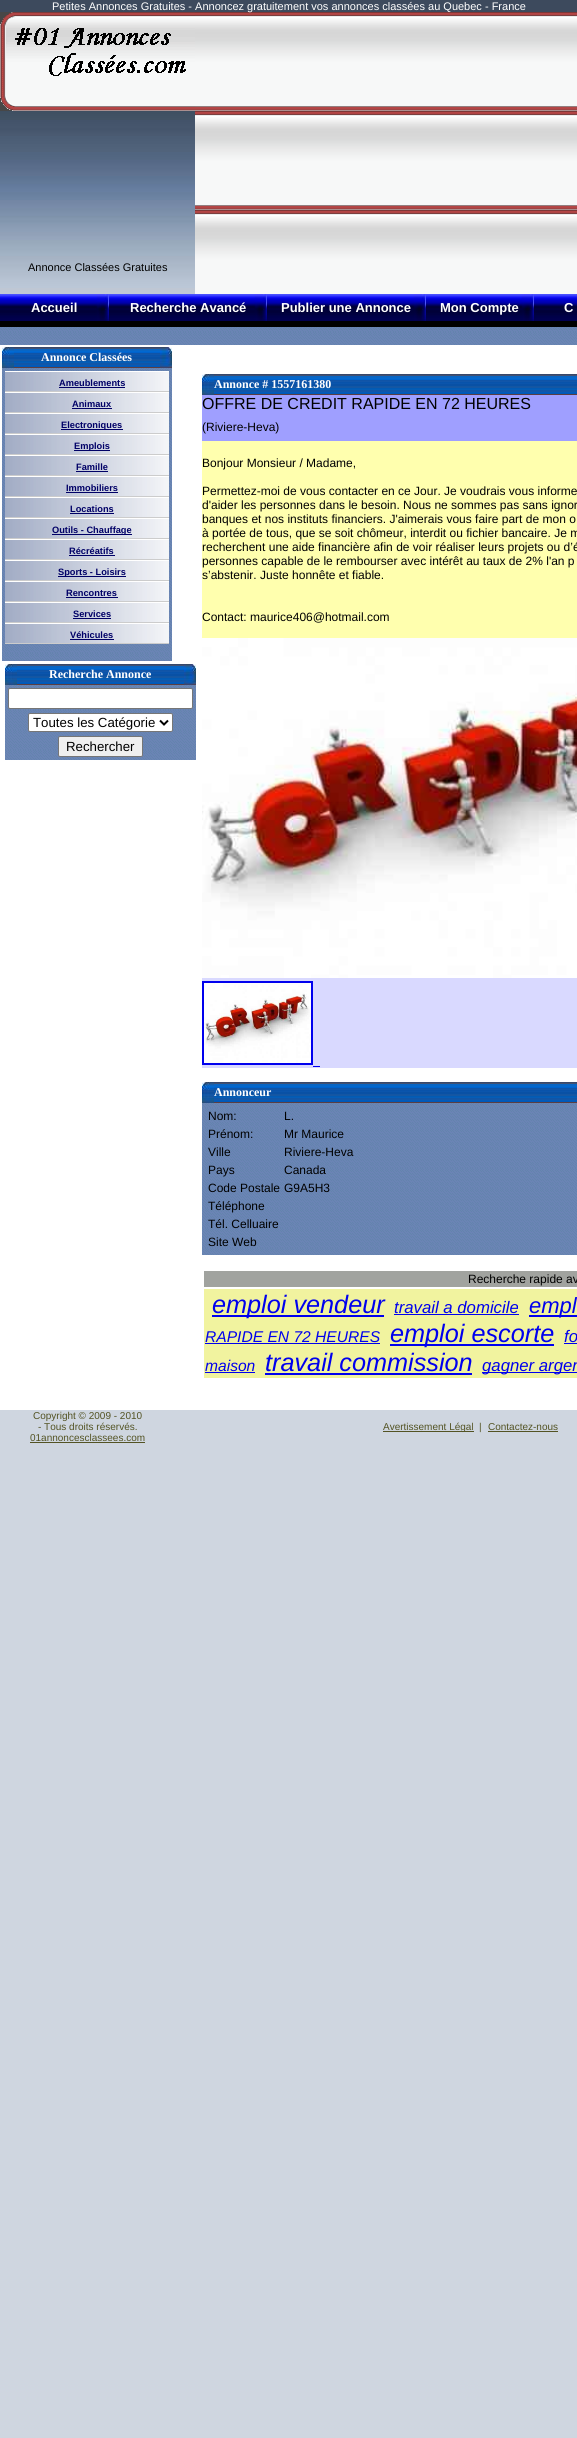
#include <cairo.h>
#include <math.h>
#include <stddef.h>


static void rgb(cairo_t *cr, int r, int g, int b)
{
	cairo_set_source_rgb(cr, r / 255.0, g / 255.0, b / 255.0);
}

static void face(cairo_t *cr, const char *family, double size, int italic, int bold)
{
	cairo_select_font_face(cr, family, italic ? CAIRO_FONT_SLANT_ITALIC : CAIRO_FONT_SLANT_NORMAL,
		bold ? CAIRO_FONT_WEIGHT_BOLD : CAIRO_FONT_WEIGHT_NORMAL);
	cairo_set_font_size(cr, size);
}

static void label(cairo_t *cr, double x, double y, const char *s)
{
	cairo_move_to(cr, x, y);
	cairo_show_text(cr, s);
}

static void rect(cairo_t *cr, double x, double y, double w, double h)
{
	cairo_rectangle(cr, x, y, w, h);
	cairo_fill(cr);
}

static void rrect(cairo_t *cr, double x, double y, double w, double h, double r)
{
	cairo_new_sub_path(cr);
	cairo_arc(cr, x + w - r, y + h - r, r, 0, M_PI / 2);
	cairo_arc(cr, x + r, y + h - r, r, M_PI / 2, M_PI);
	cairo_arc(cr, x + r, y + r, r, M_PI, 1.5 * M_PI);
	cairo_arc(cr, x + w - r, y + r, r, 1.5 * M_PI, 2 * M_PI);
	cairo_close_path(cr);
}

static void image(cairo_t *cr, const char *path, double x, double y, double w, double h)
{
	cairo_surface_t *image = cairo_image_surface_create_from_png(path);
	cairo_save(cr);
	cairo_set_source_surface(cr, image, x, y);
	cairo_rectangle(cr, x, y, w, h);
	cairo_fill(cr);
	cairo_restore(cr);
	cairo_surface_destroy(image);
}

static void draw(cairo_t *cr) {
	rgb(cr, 255, 255, 255);
	cairo_paint(cr);
	image(cr, "image0.png", 0, 0, 577, 2438);
	image(cr, "image1.png", 0, 12, 195, 99);
	image(cr, "image2.png", 195, 12, 382, 282);
	face(cr, "Liberation Sans", 11, 0, 0);
	rgb(cr, 255, 255, 255);
	label(cr, 52, 10, "Petites Annonces Gratuites - Annoncez gratuitement vos annonces classées au Quebec - France");
	rgb(cr, 0, 0, 0);
	label(cr, 28, 271, "Annonce Classées Gratuites");
	rect(cr, 0, 321, 577, 6);
	image(cr, "image3.png", 0, 294, 109, 27);
	face(cr, "Liberation Sans", 13, 0, 1);
	rgb(cr, 255, 255, 255);
	label(cr, 31, 312, "Accueil");
	image(cr, "image4.png", 109, 294, 158, 27);
	label(cr, 130, 312, "Recherche Avancé");
	image(cr, "image5.png", 267, 294, 159, 27);
	label(cr, 281, 312, "Publier une Annonce");
	image(cr, "image6.png", 426, 294, 108, 27);
	label(cr, 440, 312, "Mon Compte");
	image(cr, "image7.png", 534, 294, 43, 27);
	label(cr, 564, 312, "C");
	image(cr, "image8.png", 0, 327, 577, 18);
	rect(cr, 0, 345, 577, 1065);
	image(cr, "image9.png", 2, 347, 12, 21);
	image(cr, "image10.png", 14, 347, 146, 21);
	face(cr, "Liberation Serif", 12, 0, 1);
	label(cr, 41, 361, "Annonce Classées");
	image(cr, "image11.png", 160, 347, 12, 21);
	image(cr, "image12.png", 2, 368, 170, 293);
	image(cr, "image13.png", 5, 372, 164, 19);
	rect(cr, 5, 371, 164, 1);
	rgb(cr, 204, 204, 204);
	rect(cr, 5, 391, 164, 1);
	face(cr, "Liberation Sans", 9.25, 0, 1);
	rgb(cr, 0, 0, 102);
	label(cr, 59, 386, "Ameublements");
	rect(cr, 59, 387, 66, 1);
	image(cr, "image13.png", 5, 393, 164, 19);
	rgb(cr, 255, 255, 255);
	rect(cr, 5, 392, 164, 1);
	rgb(cr, 204, 204, 204);
	rect(cr, 5, 412, 164, 1);
	rgb(cr, 0, 0, 102);
	label(cr, 72, 407, "Animaux");
	rect(cr, 72, 408, 40, 1);
	image(cr, "image13.png", 5, 414, 164, 19);
	rgb(cr, 255, 255, 255);
	rect(cr, 5, 413, 164, 1);
	rgb(cr, 204, 204, 204);
	rect(cr, 5, 433, 164, 1);
	rgb(cr, 0, 0, 102);
	rect(cr, 61, 429, 62, 1);
	label(cr, 61, 428, "Electroniques");
	image(cr, "image13.png", 5, 435, 164, 19);
	rgb(cr, 255, 255, 255);
	rect(cr, 5, 434, 164, 1);
	rgb(cr, 204, 204, 204);
	rect(cr, 5, 454, 164, 1);
	rgb(cr, 0, 0, 102);
	rect(cr, 74, 450, 36, 1);
	label(cr, 74, 449, "Emplois");
	image(cr, "image13.png", 5, 456, 164, 19);
	rgb(cr, 255, 255, 255);
	rect(cr, 5, 455, 164, 1);
	rgb(cr, 204, 204, 204);
	rect(cr, 5, 475, 164, 1);
	rgb(cr, 0, 0, 102);
	label(cr, 76, 470, "Famille");
	rect(cr, 76, 471, 32, 1);
	image(cr, "image13.png", 5, 477, 164, 19);
	rgb(cr, 255, 255, 255);
	rect(cr, 5, 476, 164, 1);
	rgb(cr, 204, 204, 204);
	rect(cr, 5, 496, 164, 1);
	rgb(cr, 0, 0, 102);
	label(cr, 66, 491, "Immobiliers");
	rect(cr, 66, 492, 52, 1);
	image(cr, "image13.png", 5, 498, 164, 19);
	rgb(cr, 255, 255, 255);
	rect(cr, 5, 497, 164, 1);
	rgb(cr, 204, 204, 204);
	rect(cr, 5, 517, 164, 1);
	rgb(cr, 0, 0, 102);
	label(cr, 70, 512, "Locations");
	rect(cr, 70, 513, 44, 1);
	image(cr, "image13.png", 5, 519, 164, 19);
	rgb(cr, 255, 255, 255);
	rect(cr, 5, 518, 164, 1);
	rgb(cr, 204, 204, 204);
	rect(cr, 5, 538, 164, 1);
	rgb(cr, 0, 0, 102);
	rect(cr, 52, 534, 80, 1);
	label(cr, 52, 533, "Outils - Chauffage");
	image(cr, "image13.png", 5, 540, 164, 19);
	rgb(cr, 255, 255, 255);
	rect(cr, 5, 539, 164, 1);
	rgb(cr, 204, 204, 204);
	rect(cr, 5, 559, 164, 1);
	rgb(cr, 0, 0, 102);
	label(cr, 69, 554, "Récréatifs");
	rect(cr, 69, 555, 46, 1);
	image(cr, "image13.png", 5, 561, 164, 19);
	rgb(cr, 255, 255, 255);
	rect(cr, 5, 560, 164, 1);
	rgb(cr, 204, 204, 204);
	rect(cr, 5, 580, 164, 1);
	rgb(cr, 0, 0, 102);
	rect(cr, 58, 576, 68, 1);
	label(cr, 58, 575, "Sports - Loisirs");
	image(cr, "image13.png", 5, 582, 164, 19);
	rgb(cr, 255, 255, 255);
	rect(cr, 5, 581, 164, 1);
	rgb(cr, 204, 204, 204);
	rect(cr, 5, 601, 164, 1);
	rgb(cr, 0, 0, 102);
	label(cr, 66, 596, "Rencontres");
	rect(cr, 66, 597, 52, 1);
	image(cr, "image13.png", 5, 603, 164, 19);
	rgb(cr, 255, 255, 255);
	rect(cr, 5, 602, 164, 1);
	rgb(cr, 204, 204, 204);
	rect(cr, 5, 622, 164, 1);
	rgb(cr, 0, 0, 102);
	label(cr, 73, 617, "Services");
	rect(cr, 73, 618, 38, 1);
	image(cr, "image13.png", 5, 624, 164, 19);
	rgb(cr, 255, 255, 255);
	rect(cr, 5, 623, 164, 1);
	rgb(cr, 204, 204, 204);
	rect(cr, 5, 643, 164, 1);
	rgb(cr, 0, 0, 102);
	label(cr, 70, 638, "Véhicules");
	rect(cr, 70, 639, 44, 1);
	image(cr, "image9.png", 5, 664, 12, 21);
	image(cr, "image14.png", 17, 664, 167, 21);
	face(cr, "Liberation Serif", 12, 0, 1);
	rgb(cr, 255, 255, 255);
	label(cr, 49, 678, "Recherche Annonce");
	image(cr, "image11.png", 184, 664, 12, 21);
	image(cr, "image15.png", 5, 685, 191, 75);
	rrect(cr, 8.5, 688.5, 184, 20, 1.5);
	cairo_fill_preserve(cr);
	rgb(cr, 118, 118, 118);
	cairo_set_line_width(cr, 1);
	cairo_stroke(cr);
	rgb(cr, 255, 255, 255);
	rrect(cr, 28.5, 713.5, 144, 18, 1.5);
	cairo_fill_preserve(cr);
	rgb(cr, 118, 118, 118);
	cairo_stroke(cr);
	cairo_new_path(cr);
	cairo_move_to(cr, 160, 720.5);
	cairo_line_to(cr, 164, 724.5);
	cairo_line_to(cr, 168, 720.5);
	rgb(cr, 0, 0, 0);
	cairo_set_line_width(cr, 2);
	cairo_stroke(cr);
	face(cr, "Liberation Sans", 13.25, 0, 0);
	label(cr, 33, 727, "Toutes les Catégorie");
	rgb(cr, 239, 239, 239);
	rrect(cr, 58.5, 736.5, 84, 20, 1.5);
	cairo_fill_preserve(cr);
	rgb(cr, 118, 118, 118);
	cairo_set_line_width(cr, 1);
	cairo_stroke(cr);
	rgb(cr, 0, 0, 0);
	label(cr, 66, 751, "Rechercher");
	image(cr, "image9.png", 202, 374, 12, 21);
	image(cr, "image16.png", 214, 374, 363, 21);
	face(cr, "Liberation Serif", 12, 0, 1);
	rgb(cr, 255, 255, 255);
	label(cr, 214, 388, "Annonce # 1557161380");
	rgb(cr, 159, 159, 255);
	rect(cr, 202, 395, 375, 46);
	face(cr, "Liberation Sans", 16, 0, 0);
	rgb(cr, 0, 0, 0);
	label(cr, 202, 409, "OFFRE DE CREDIT RAPIDE EN 72 HEURES");
	face(cr, "Liberation Sans", 12, 0, 0);
	label(cr, 202, 431, "(Riviere-Heva)");
	rgb(cr, 255, 255, 174);
	rect(cr, 202, 441, 375, 197);
	rgb(cr, 0, 0, 0);
	label(cr, 202, 467, "Bonjour Monsieur / Madame,");
	label(cr, 202, 495, "Permettez-moi de vous contacter en ce Jour. Je voudrais vous informe");
	label(cr, 202, 509, "d'aider les personnes dans le besoin. Nous ne sommes pas sans ignor");
	label(cr, 202, 523, "banques et nos instituts financiers. J'aimerais vous faire part de mon o");
	label(cr, 202, 537, "à portée de tous, que se soit chômeur, interdit ou fichier bancaire. Je m");
	label(cr, 202, 551, "recherchent une aide financière afin de voir réaliser leurs projets ou d’é");
	label(cr, 202, 565, "personnes capable de le rembourser avec intérêt au taux de 2% l'an p");
	label(cr, 202, 579, "s’abstenir. Juste honnête et fiable.");
	label(cr, 202, 621, "Contact: maurice406@hotmail.com");
	rgb(cr, 217, 217, 255);
	rect(cr, 202, 978, 375, 90);
	image(cr, "image17.png", 202, 638, 375, 340);
	cairo_rectangle(cr, 203, 982, 109, 82);
	rgb(cr, 0, 0, 238);
	cairo_set_line_width(cr, 2);
	cairo_stroke(cr);
	image(cr, "image18.png", 204, 983, 107, 80);
	rect(cr, 313, 1066, 7, 1);
	image(cr, "image9.png", 202, 1082, 12, 21);
	image(cr, "image16.png", 214, 1082, 363, 21);
	face(cr, "Liberation Serif", 12, 0, 1);
	rgb(cr, 255, 255, 255);
	label(cr, 214, 1096, "Annonceur");
	image(cr, "image19.png", 202, 1103, 375, 152);
	face(cr, "Liberation Sans", 12, 0, 0);
	rgb(cr, 0, 0, 0);
	label(cr, 208, 1120, "Nom:");
	label(cr, 284, 1120, "L.");
	label(cr, 208, 1138, "Prénom:");
	label(cr, 284, 1138, "Mr Maurice");
	label(cr, 208, 1156, "Ville");
	label(cr, 284, 1156, "Riviere-Heva");
	label(cr, 208, 1174, "Pays");
	label(cr, 284, 1174, "Canada");
	label(cr, 208, 1192, "Code Postale");
	label(cr, 284, 1192, "G9A5H3");
	label(cr, 208, 1210, "Téléphone");
	label(cr, 208, 1228, "Tél. Celluaire");
	label(cr, 208, 1246, "Site Web");
	rgb(cr, 161, 163, 159);
	rect(cr, 204, 1271, 373, 16);
	rgb(cr, 0, 0, 0);
	label(cr, 468, 1283, "Recherche rapide av");
	rgb(cr, 241, 243, 159);
	rect(cr, 204, 1289, 373, 89);
	rgb(cr, 0, 0, 238);
	rect(cr, 212, 1315, 172, 2);
	face(cr, "Liberation Sans", 25.25, 1, 0);
	label(cr, 212, 1313, "emploi vendeur");
	face(cr, "Liberation Sans", 16.75, 1, 0);
	label(cr, 394, 1313, "travail a domicile");
	rect(cr, 394, 1314, 125, 1);
	rect(cr, 529, 1315, 48, 2);
	face(cr, "Liberation Sans", 22, 1, 0);
	label(cr, 529, 1313, "empl");
	face(cr, "Liberation Sans", 15.6, 1, 0);
	label(cr, 205, 1342, "RAPIDE EN 72 HEURES");
	rect(cr, 205, 1343, 175, 1);
	rect(cr, 390, 1344, 164, 2);
	face(cr, "Liberation Sans", 25.25, 1, 0);
	label(cr, 390, 1342, "emploi escorte");
	face(cr, "Liberation Sans", 16.75, 1, 0);
	label(cr, 564, 1342, "fo");
	rect(cr, 564, 1343, 13, 1);
	face(cr, "Liberation Sans", 15.6, 1, 0);
	label(cr, 205, 1371, "maison");
	rect(cr, 205, 1372, 50, 1);
	face(cr, "Liberation Sans", 25.25, 1, 0);
	label(cr, 265, 1371, "travail commission");
	rect(cr, 265, 1373, 207, 2);
	rect(cr, 482, 1372, 95, 1);
	face(cr, "Liberation Sans", 16.75, 1, 0);
	label(cr, 482, 1371, "gagner argen");
	face(cr, "Liberation Sans", 10, 0, 0);
	rgb(cr, 83, 83, 35);
	label(cr, 33, 1419, "Copyright © 2009 - 2010");
	label(cr, 38, 1430, "- Tous droits réservés.");
	label(cr, 30, 1441, "01annoncesclassees.com");
	rect(cr, 30, 1442, 115, 1);
	rect(cr, 383, 1431, 91, 1);
	label(cr, 383, 1430, "Avertissement Légal");
	label(cr, 479, 1430, "|");
	label(cr, 488, 1430, "Contactez-nous");
	rect(cr, 488, 1431, 70, 1);
}

int main(void) {
	cairo_surface_t *surface = cairo_image_surface_create(CAIRO_FORMAT_RGB24, 577, 2438);
	cairo_t *cr = cairo_create(surface);
	cairo_font_options_t *options = cairo_font_options_create();
	cairo_font_options_set_hint_metrics(options, CAIRO_HINT_METRICS_OFF);
	cairo_font_options_set_hint_style(options, CAIRO_HINT_STYLE_NONE);
	cairo_set_font_options(cr, options);
	cairo_set_miter_limit(cr, 4);
	draw(cr);
	cairo_surface_write_to_png(surface, "render.png");
	cairo_font_options_destroy(options);
	cairo_destroy(cr);
	cairo_surface_destroy(surface);
	return 0;
}
